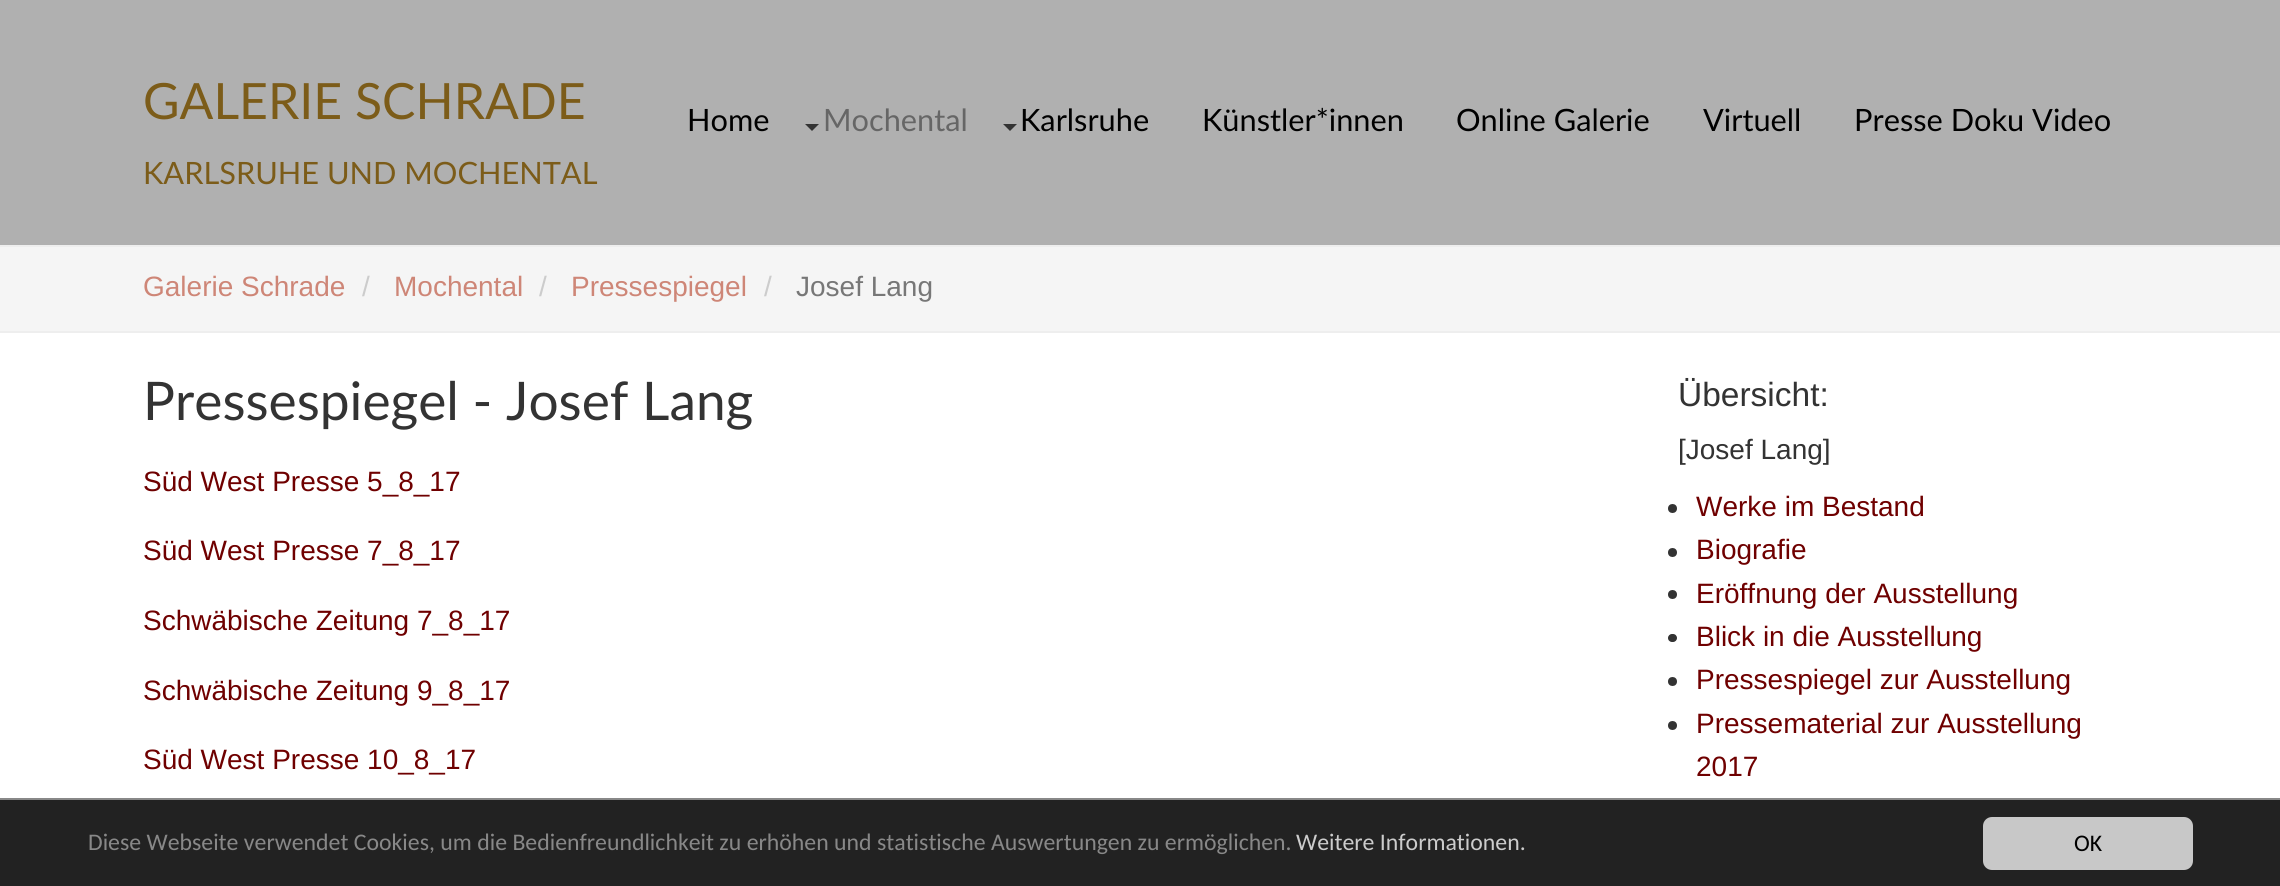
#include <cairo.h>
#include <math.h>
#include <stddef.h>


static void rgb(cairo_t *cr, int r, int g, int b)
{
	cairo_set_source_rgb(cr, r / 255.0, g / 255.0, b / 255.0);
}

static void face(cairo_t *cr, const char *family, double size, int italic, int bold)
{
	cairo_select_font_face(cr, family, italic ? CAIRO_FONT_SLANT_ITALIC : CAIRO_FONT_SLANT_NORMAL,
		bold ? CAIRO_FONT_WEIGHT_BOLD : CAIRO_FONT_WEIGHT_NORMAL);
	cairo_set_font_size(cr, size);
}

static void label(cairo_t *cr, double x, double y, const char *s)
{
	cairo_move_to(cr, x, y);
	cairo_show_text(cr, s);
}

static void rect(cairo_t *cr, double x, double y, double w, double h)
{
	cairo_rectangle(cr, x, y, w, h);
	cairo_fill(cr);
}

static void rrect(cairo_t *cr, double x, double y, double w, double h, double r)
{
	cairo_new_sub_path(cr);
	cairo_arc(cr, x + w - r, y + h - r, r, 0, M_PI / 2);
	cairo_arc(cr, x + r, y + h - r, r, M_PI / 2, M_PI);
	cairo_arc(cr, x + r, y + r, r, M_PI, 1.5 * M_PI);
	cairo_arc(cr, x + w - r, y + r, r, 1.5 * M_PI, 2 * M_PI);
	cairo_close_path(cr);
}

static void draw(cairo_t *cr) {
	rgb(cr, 255, 255, 255);
	cairo_paint(cr);
	rgb(cr, 176, 176, 176);
	rect(cr, 0, 0, 2280, 245);
	rgb(cr, 238, 238, 238);
	rect(cr, 0, 245, 2280, 2);
	face(cr, "Lato", 50, 0, 0);
	rgb(cr, 124, 92, 25);
	label(cr, 143, 119, "GALERIE SCHRADE");
	face(cr, "Lato", 30.75, 0, 0);
	label(cr, 143, 184, "KARLSRUHE UND MOCHENTAL");
	rgb(cr, 0, 0, 0);
	label(cr, 687, 131, "Home");
	rgb(cr, 51, 51, 51);
	cairo_new_path(cr);
	cairo_move_to(cr, 805, 124);
	cairo_line_to(cr, 819, 124);
	cairo_line_to(cr, 812, 131);
	cairo_close_path(cr);
	cairo_fill(cr);
	rgb(cr, 102, 102, 102);
	label(cr, 823, 131, "Mochental");
	rgb(cr, 51, 51, 51);
	cairo_new_path(cr);
	cairo_move_to(cr, 1003, 124);
	cairo_line_to(cr, 1017, 124);
	cairo_line_to(cr, 1010, 131);
	cairo_close_path(cr);
	cairo_fill(cr);
	rgb(cr, 0, 0, 0);
	label(cr, 1020, 131, "Karlsruhe");
	label(cr, 1202, 131, "Künstler*innen");
	label(cr, 1456, 131, "Online Galerie");
	label(cr, 1703, 131, "Virtuell");
	label(cr, 1854, 131, "Presse Doku Video");
	rgb(cr, 245, 245, 245);
	rect(cr, 0, 247, 2280, 84);
	rgb(cr, 238, 238, 238);
	rect(cr, 0, 331, 2280, 2);
	face(cr, "Liberation Sans", 28, 0, 0);
	rgb(cr, 206, 134, 119);
	label(cr, 143, 296, "Galerie Schrade");
	rgb(cr, 204, 204, 204);
	label(cr, 362, 296, "/");
	rgb(cr, 206, 134, 119);
	label(cr, 394, 296, "Mochental");
	rgb(cr, 204, 204, 204);
	label(cr, 539, 296, "/");
	rgb(cr, 206, 134, 119);
	label(cr, 571, 296, "Pressespiegel");
	rgb(cr, 204, 204, 204);
	label(cr, 764, 296, "/");
	rgb(cr, 119, 119, 119);
	label(cr, 796, 296, "Josef Lang");
	face(cr, "Lato", 53.25, 0, 0);
	rgb(cr, 51, 51, 51);
	label(cr, 143, 420, "Pressespiegel - Josef Lang");
	face(cr, "Liberation Sans", 28, 0, 0);
	rgb(cr, 111, 0, 0);
	label(cr, 143, 491, "Süd West Presse 5_8_17");
	label(cr, 143, 560, "Süd West Presse 7_8_17");
	label(cr, 143, 630, "Schwäbische Zeitung 7_8_17");
	label(cr, 143, 700, "Schwäbische Zeitung 9_8_17");
	label(cr, 143, 769, "Süd West Presse 10_8_17");
	face(cr, "Liberation Sans", 33.5, 0, 0);
	rgb(cr, 51, 51, 51);
	label(cr, 1678, 406, "Übersicht:");
	face(cr, "Liberation Sans", 28, 0, 0);
	label(cr, 1678, 459, "[Josef Lang]");
	cairo_new_path(cr);
	cairo_arc(cr, 1672.5, 508.5, 4.5, 0, 2 * M_PI);
	cairo_fill(cr);
	rgb(cr, 111, 0, 0);
	label(cr, 1696, 516, "Werke im Bestand");
	rgb(cr, 51, 51, 51);
	cairo_new_path(cr);
	cairo_arc(cr, 1672.5, 552.5, 4.5, 0, 2 * M_PI);
	cairo_fill(cr);
	rgb(cr, 111, 0, 0);
	label(cr, 1696, 559, "Biografie");
	rgb(cr, 51, 51, 51);
	cairo_new_path(cr);
	cairo_arc(cr, 1672.5, 594.5, 4.5, 0, 2 * M_PI);
	cairo_fill(cr);
	rgb(cr, 111, 0, 0);
	label(cr, 1696, 603, "Eröffnung der Ausstellung");
	rgb(cr, 51, 51, 51);
	rrect(cr, 1668, 634, 9, 8, 4);
	cairo_fill(cr);
	rgb(cr, 111, 0, 0);
	label(cr, 1696, 646, "Blick in die Ausstellung");
	rgb(cr, 51, 51, 51);
	cairo_new_path(cr);
	cairo_arc(cr, 1672.5, 681.5, 4.5, 0, 2 * M_PI);
	cairo_fill(cr);
	rgb(cr, 111, 0, 0);
	label(cr, 1696, 689, "Pressespiegel zur Ausstellung");
	rgb(cr, 51, 51, 51);
	cairo_new_path(cr);
	cairo_arc(cr, 1672.5, 725.5, 4.5, 0, 2 * M_PI);
	cairo_fill(cr);
	rgb(cr, 111, 0, 0);
	label(cr, 1696, 733, "Pressematerial zur Ausstellung");
	label(cr, 1696, 776, "2017");
	rgb(cr, 34, 34, 34);
	rect(cr, 0, 800, 2280, 86);
	rgb(cr, 136, 136, 136);
	rect(cr, 0, 798, 2280, 2);
	face(cr, "Carlito", 23.8, 0, 0);
	label(cr, 88, 850, "Diese Webseite verwendet Cookies, um die Bedienfreundlichkeit zu erhöhen und statistische Auswertungen zu ermöglichen.");
	rgb(cr, 204, 204, 204);
	label(cr, 1296, 850, "Weitere Informationen.");
	rgb(cr, 200, 200, 200);
	rrect(cr, 1983, 817, 210, 53, 9);
	cairo_fill(cr);
	rgb(cr, 0, 0, 0);
	label(cr, 2074, 851, "OK");
}

int main(void) {
	cairo_surface_t *surface = cairo_image_surface_create(CAIRO_FORMAT_RGB24, 2280, 886);
	cairo_t *cr = cairo_create(surface);
	cairo_font_options_t *options = cairo_font_options_create();
	cairo_font_options_set_hint_metrics(options, CAIRO_HINT_METRICS_OFF);
	cairo_font_options_set_hint_style(options, CAIRO_HINT_STYLE_NONE);
	cairo_set_font_options(cr, options);
	cairo_set_miter_limit(cr, 4);
	draw(cr);
	cairo_surface_write_to_png(surface, "render.png");
	cairo_font_options_destroy(options);
	cairo_destroy(cr);
	cairo_surface_destroy(surface);
	return 0;
}
